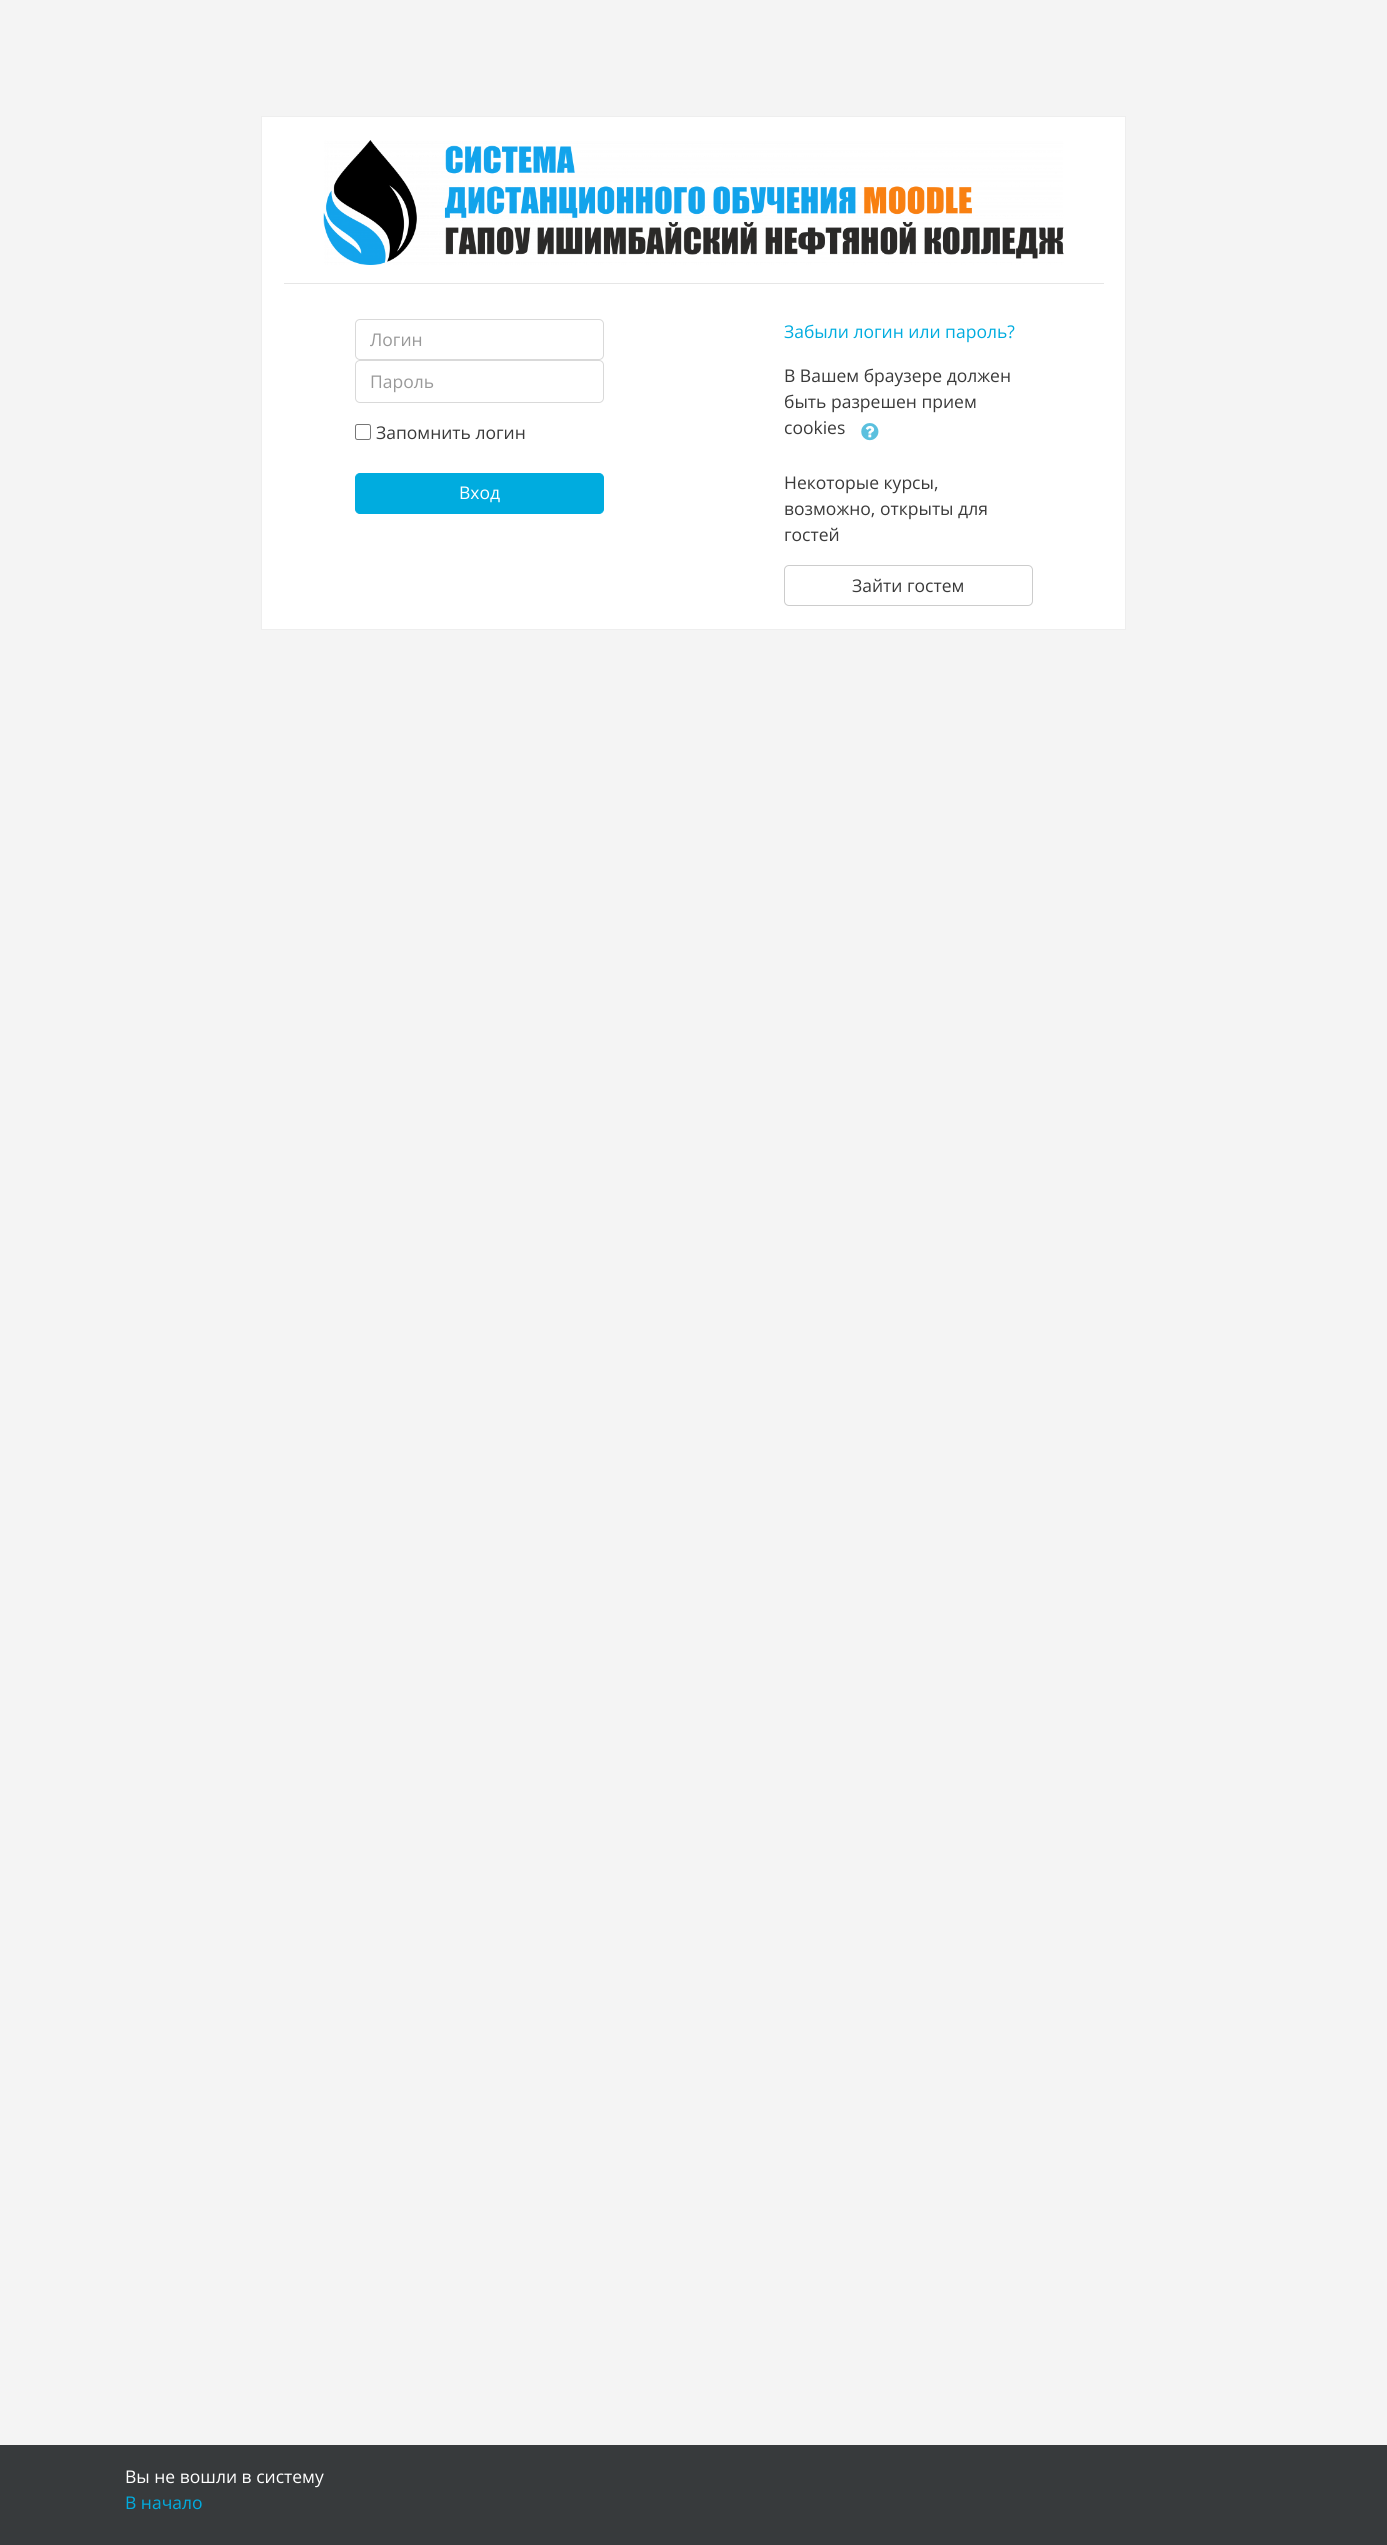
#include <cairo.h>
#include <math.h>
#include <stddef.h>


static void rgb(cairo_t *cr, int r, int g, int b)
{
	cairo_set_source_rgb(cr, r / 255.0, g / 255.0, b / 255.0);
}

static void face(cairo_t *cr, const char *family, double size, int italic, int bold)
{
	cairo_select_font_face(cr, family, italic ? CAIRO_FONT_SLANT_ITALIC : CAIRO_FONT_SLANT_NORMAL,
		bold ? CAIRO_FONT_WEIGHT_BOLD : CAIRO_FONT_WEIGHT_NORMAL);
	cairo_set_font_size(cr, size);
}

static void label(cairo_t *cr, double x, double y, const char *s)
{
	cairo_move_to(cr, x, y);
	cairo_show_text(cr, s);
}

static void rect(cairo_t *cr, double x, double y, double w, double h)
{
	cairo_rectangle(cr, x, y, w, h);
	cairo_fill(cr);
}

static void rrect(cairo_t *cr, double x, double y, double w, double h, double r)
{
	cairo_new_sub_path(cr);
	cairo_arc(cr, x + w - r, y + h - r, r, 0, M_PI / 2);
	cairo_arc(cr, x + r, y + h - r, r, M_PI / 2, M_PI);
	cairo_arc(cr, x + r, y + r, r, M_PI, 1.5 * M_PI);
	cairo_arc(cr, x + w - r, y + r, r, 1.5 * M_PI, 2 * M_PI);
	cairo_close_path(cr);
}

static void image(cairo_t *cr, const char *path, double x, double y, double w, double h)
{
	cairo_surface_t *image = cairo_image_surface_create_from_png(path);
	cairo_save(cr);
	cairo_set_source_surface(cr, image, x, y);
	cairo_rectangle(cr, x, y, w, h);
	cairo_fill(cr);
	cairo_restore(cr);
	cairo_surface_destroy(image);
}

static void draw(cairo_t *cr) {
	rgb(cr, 244, 244, 244);
	cairo_paint(cr);
	rgb(cr, 255, 255, 255);
	cairo_rectangle(cr, 261.5, 116.5, 864, 513);
	cairo_fill_preserve(cr);
	rgb(cr, 238, 238, 238);
	cairo_set_line_width(cr, 1);
	cairo_stroke(cr);
	image(cr, "image0.png", 323, 140, 741, 125);
	rgb(cr, 230, 230, 230);
	rect(cr, 284, 283, 820, 1);
	rrect(cr, 355.5, 319.5, 248, 40, 4.5);
	rgb(cr, 217, 217, 217);
	cairo_stroke(cr);
	face(cr, "Open Sans", 17.5, 0, 0);
	rgb(cr, 153, 153, 153);
	label(cr, 370, 346, "Логин");
	rrect(cr, 355.5, 360.5, 248, 42, 4.5);
	rgb(cr, 217, 217, 217);
	cairo_stroke(cr);
	rgb(cr, 153, 153, 153);
	label(cr, 370, 388, "Пароль");
	rrect(cr, 355.5, 424.5, 15, 15, 2);
	rgb(cr, 118, 118, 118);
	cairo_stroke(cr);
	rgb(cr, 58, 58, 58);
	label(cr, 376, 439, "Запомнить логин");
	rgb(cr, 0, 172, 223);
	rrect(cr, 355.5, 473.5, 248, 40, 4.5);
	cairo_fill_preserve(cr);
	cairo_stroke(cr);
	rgb(cr, 255, 255, 255);
	label(cr, 459, 499, "Вход");
	rgb(cr, 0, 172, 223);
	label(cr, 784, 338, "Забыли логин или пароль?");
	rgb(cr, 58, 58, 58);
	label(cr, 784, 382, "В Вашем браузере должен");
	label(cr, 784, 408, "быть разрешен прием");
	label(cr, 784, 434, "cookies");
	image(cr, "image1.png", 861, 423, 18, 18);
	label(cr, 784, 489, "Некоторые курсы,");
	label(cr, 784, 515, "возможно, открыты для");
	label(cr, 784, 541, "гостей");
	rrect(cr, 784.5, 565.5, 248, 40, 4.5);
	rgb(cr, 204, 204, 204);
	cairo_stroke(cr);
	rgb(cr, 58, 58, 58);
	label(cr, 852, 592, "Зайти гостем");
	rgb(cr, 55, 58, 60);
	rect(cr, 0, 2445, 1387, 100);
	rgb(cr, 255, 255, 255);
	label(cr, 125, 2483, "Вы не вошли в систему");
	rgb(cr, 0, 172, 223);
	label(cr, 125, 2509, "В начало");
}

int main(void) {
	cairo_surface_t *surface = cairo_image_surface_create(CAIRO_FORMAT_RGB24, 1387, 2545);
	cairo_t *cr = cairo_create(surface);
	cairo_font_options_t *options = cairo_font_options_create();
	cairo_font_options_set_hint_metrics(options, CAIRO_HINT_METRICS_OFF);
	cairo_font_options_set_hint_style(options, CAIRO_HINT_STYLE_NONE);
	cairo_set_font_options(cr, options);
	cairo_set_miter_limit(cr, 4);
	draw(cr);
	cairo_surface_write_to_png(surface, "render.png");
	cairo_font_options_destroy(options);
	cairo_destroy(cr);
	cairo_surface_destroy(surface);
	return 0;
}
